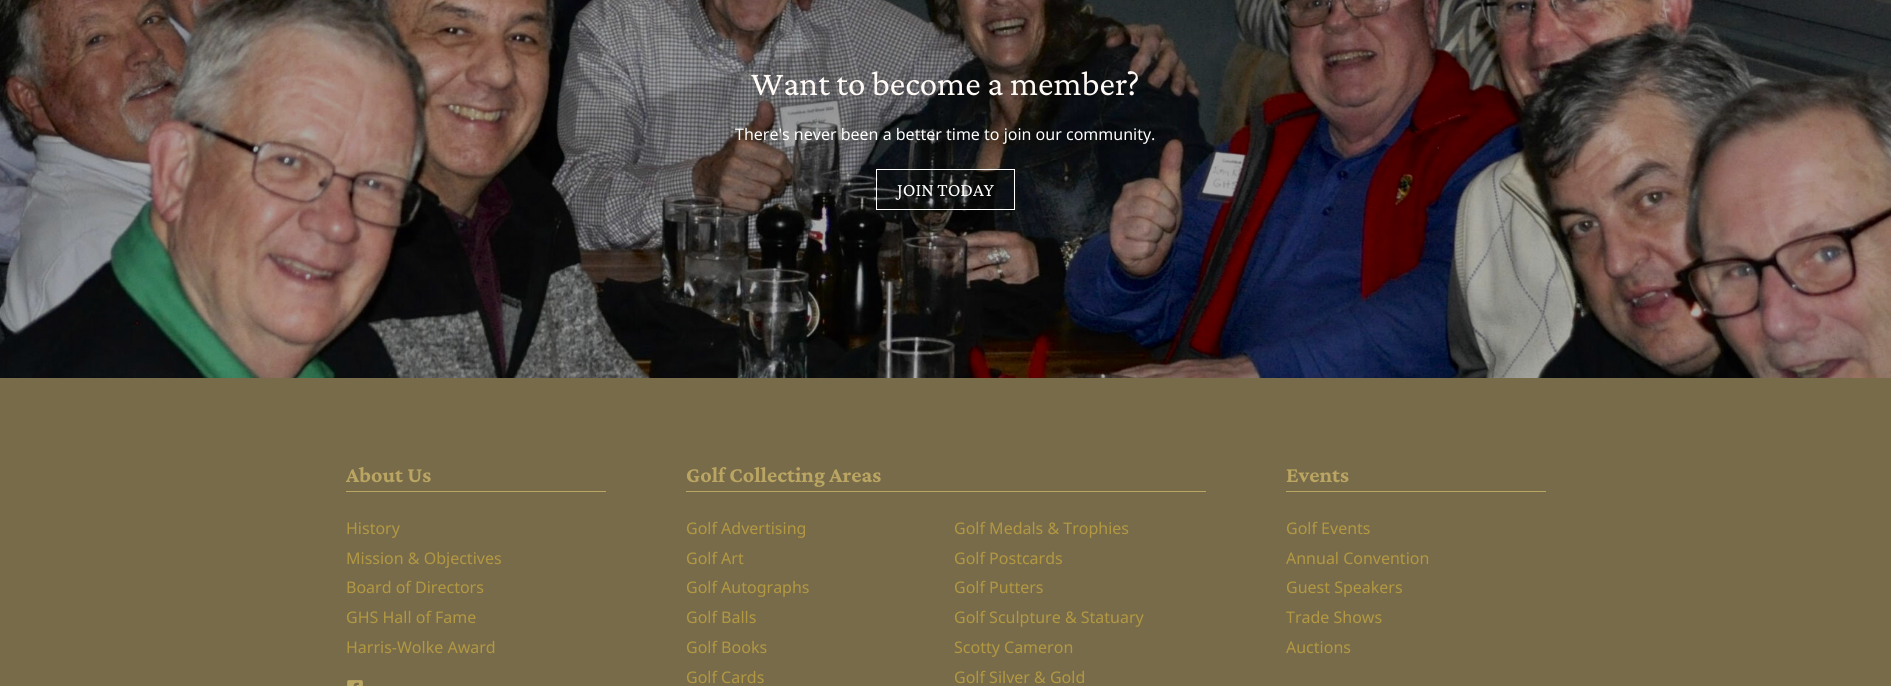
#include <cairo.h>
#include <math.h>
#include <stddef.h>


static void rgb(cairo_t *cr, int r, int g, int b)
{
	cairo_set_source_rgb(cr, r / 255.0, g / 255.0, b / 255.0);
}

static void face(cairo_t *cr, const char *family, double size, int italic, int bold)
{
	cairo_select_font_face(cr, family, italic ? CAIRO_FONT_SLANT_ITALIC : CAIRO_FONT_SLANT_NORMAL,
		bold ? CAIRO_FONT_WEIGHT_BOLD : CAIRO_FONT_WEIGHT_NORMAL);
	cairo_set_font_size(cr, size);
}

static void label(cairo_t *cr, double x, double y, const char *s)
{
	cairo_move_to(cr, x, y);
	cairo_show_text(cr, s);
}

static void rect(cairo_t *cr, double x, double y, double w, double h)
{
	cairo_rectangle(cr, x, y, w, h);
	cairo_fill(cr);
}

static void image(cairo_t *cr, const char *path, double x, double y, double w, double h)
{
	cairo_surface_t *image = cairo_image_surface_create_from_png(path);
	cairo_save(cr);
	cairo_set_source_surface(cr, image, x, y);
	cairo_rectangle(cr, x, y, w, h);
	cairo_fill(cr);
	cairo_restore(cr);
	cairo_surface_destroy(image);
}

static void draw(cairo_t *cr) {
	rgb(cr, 120, 107, 73);
	cairo_paint(cr);
	image(cr, "image0.png", 0, 0, 1891, 378);
	face(cr, "Crimson Pro", 35, 0, 0);
	rgb(cr, 255, 250, 246);
	label(cr, 751, 95, "Want to become a member?");
	face(cr, "Noto Sans", 16, 0, 0);
	rgb(cr, 255, 255, 255);
	label(cr, 735, 140, "There's never been a better time to join our community.");
	cairo_rectangle(cr, 876.5, 169.5, 138, 40);
	cairo_set_line_width(cr, 1);
	cairo_stroke(cr);
	face(cr, "Crimson Pro", 19, 0, 0);
	label(cr, 897, 196, "JOIN TODAY");
	rgb(cr, 186, 165, 98);
	rect(cr, 346, 491, 260, 1);
	face(cr, "Crimson Pro", 22, 0, 1);
	label(cr, 346, 482, "About Us");
	face(cr, "Noto Sans", 16, 0, 0);
	rgb(cr, 178, 152, 66);
	label(cr, 346, 534, "History");
	label(cr, 346, 564, "Mission & Objectives");
	label(cr, 346, 593, "Board of Directors");
	label(cr, 346, 623, "GHS Hall of Fame");
	label(cr, 346, 653, "Harris-Wolke Award");
	image(cr, "image1.png", 347, 680, 16, 6);
	rgb(cr, 186, 165, 98);
	rect(cr, 686, 491, 520, 1);
	face(cr, "Crimson Pro", 22, 0, 1);
	label(cr, 686, 482, "Golf Collecting Areas");
	face(cr, "Noto Sans", 16, 0, 0);
	rgb(cr, 178, 152, 66);
	label(cr, 686, 534, "Golf Advertising");
	label(cr, 954, 534, "Golf Medals & Trophies");
	label(cr, 686, 564, "Golf Art");
	label(cr, 954, 564, "Golf Postcards");
	label(cr, 686, 593, "Golf Autographs");
	label(cr, 954, 593, "Golf Putters");
	label(cr, 686, 623, "Golf Balls");
	label(cr, 954, 623, "Golf Sculpture & Statuary");
	label(cr, 686, 653, "Golf Books");
	label(cr, 954, 653, "Scotty Cameron");
	label(cr, 686, 683, "Golf Cards");
	label(cr, 954, 683, "Golf Silver & Gold");
	rgb(cr, 186, 165, 98);
	rect(cr, 1286, 491, 260, 1);
	face(cr, "Crimson Pro", 22, 0, 1);
	label(cr, 1286, 482, "Events");
	face(cr, "Noto Sans", 16, 0, 0);
	rgb(cr, 178, 152, 66);
	label(cr, 1286, 534, "Golf Events");
	label(cr, 1286, 564, "Annual Convention");
	label(cr, 1286, 593, "Guest Speakers");
	label(cr, 1286, 623, "Trade Shows");
	label(cr, 1286, 653, "Auctions");
}

int main(void) {
	cairo_surface_t *surface = cairo_image_surface_create(CAIRO_FORMAT_RGB24, 1891, 686);
	cairo_t *cr = cairo_create(surface);
	cairo_font_options_t *options = cairo_font_options_create();
	cairo_font_options_set_hint_metrics(options, CAIRO_HINT_METRICS_OFF);
	cairo_font_options_set_hint_style(options, CAIRO_HINT_STYLE_NONE);
	cairo_set_font_options(cr, options);
	cairo_set_miter_limit(cr, 4);
	draw(cr);
	cairo_surface_write_to_png(surface, "render.png");
	cairo_font_options_destroy(options);
	cairo_destroy(cr);
	cairo_surface_destroy(surface);
	return 0;
}
